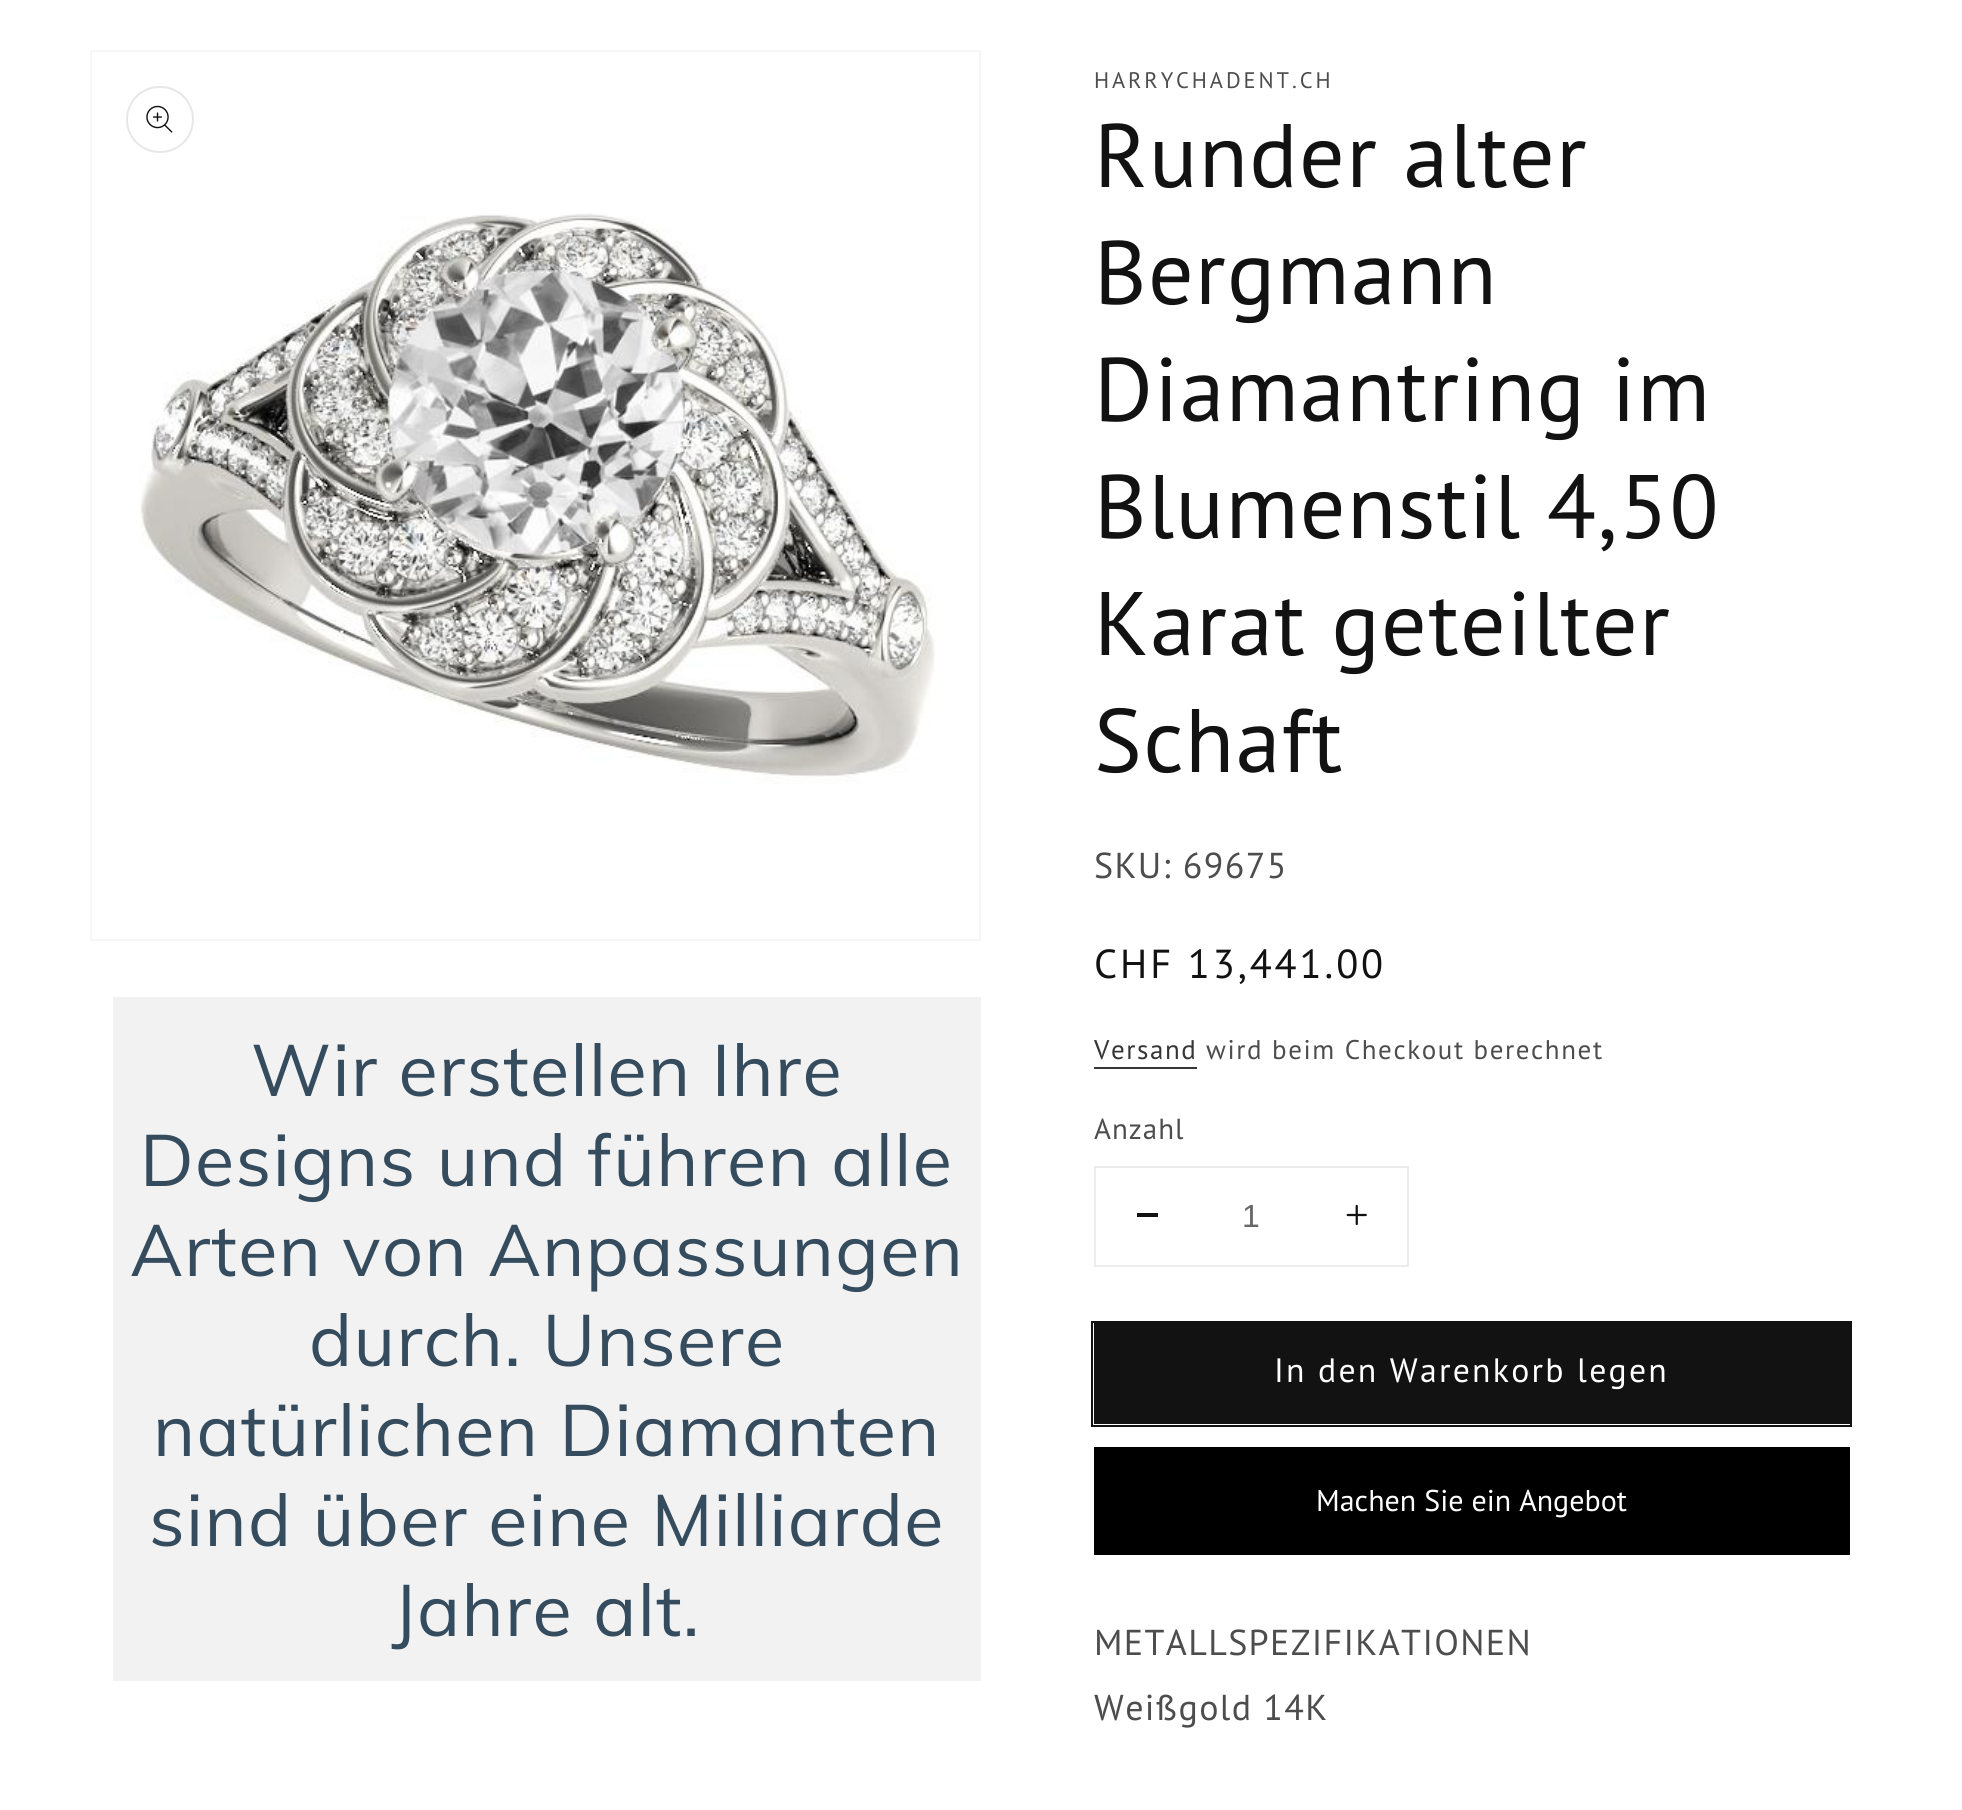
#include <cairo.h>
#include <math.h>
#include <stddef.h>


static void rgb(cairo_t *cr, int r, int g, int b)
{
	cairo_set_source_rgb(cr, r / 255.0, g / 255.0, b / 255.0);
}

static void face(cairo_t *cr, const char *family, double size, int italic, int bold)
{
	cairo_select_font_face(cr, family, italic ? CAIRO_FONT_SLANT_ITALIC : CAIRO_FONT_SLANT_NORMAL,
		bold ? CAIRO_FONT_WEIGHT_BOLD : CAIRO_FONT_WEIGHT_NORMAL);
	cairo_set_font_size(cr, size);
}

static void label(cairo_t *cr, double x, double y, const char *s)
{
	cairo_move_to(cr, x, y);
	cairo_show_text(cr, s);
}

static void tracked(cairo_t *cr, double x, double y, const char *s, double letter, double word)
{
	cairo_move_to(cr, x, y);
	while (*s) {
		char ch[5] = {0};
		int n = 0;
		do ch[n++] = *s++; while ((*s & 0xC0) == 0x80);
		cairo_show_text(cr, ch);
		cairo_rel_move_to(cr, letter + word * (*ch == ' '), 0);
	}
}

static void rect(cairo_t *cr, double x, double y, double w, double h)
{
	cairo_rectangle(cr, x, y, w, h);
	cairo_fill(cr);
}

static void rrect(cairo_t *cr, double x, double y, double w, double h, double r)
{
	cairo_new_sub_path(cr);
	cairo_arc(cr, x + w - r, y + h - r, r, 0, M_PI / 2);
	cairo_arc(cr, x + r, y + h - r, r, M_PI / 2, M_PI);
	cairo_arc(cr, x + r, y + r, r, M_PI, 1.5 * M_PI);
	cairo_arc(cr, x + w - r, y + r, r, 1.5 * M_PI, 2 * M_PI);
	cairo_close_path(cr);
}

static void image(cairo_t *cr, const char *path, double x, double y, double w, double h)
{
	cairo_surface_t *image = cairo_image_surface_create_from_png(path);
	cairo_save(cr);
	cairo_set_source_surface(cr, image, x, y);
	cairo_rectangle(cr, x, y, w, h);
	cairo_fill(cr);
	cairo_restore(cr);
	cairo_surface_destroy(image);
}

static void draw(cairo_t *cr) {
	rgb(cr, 255, 255, 255);
	cairo_paint(cr);
	cairo_rectangle(cr, 91, 51, 889, 889);
	rgb(cr, 246, 246, 246);
	cairo_stroke(cr);
	rrect(cr, 127, 87, 66, 65, 32.5);
	rgb(cr, 231, 231, 231);
	cairo_stroke(cr);
	image(cr, "image0.png", 146, 105, 27, 28);
	image(cr, "image1.png", 139, 213, 796, 571);
	rgb(cr, 242, 242, 242);
	rect(cr, 113, 997, 868, 684);
	face(cr, "Muli", 72, 0, 0);
	rgb(cr, 53, 75, 94);
	tracked(cr, 251, 1096, "Wir erstellen Ihre", 1.35, 0);
	tracked(cr, 140, 1186, "Designs und führen alle", 1.35, 0);
	tracked(cr, 130, 1276, "Arten von Anpassungen", 1.35, 0);
	tracked(cr, 309, 1366, "durch. Unsere", 1.35, 0);
	tracked(cr, 153, 1456, "natürlichen Diamanten", 1.35, 0);
	tracked(cr, 149, 1546, "sind über eine Milliarde", 1.35, 0);
	tracked(cr, 392, 1636, "Jahre alt.", 1.35, 0);
	face(cr, "PT Sans", 22.5, 0, 0);
	rgb(cr, 77, 77, 77);
	tracked(cr, 1094, 88, "HARRYCHADENT.CH", 2.9, 0);
	face(cr, "PT Sans", 90, 0, 0);
	rgb(cr, 18, 18, 18);
	tracked(cr, 1094, 187, "Runder alter", 1.35, 0);
	tracked(cr, 1094, 304, "Bergmann", 1.35, 0);
	tracked(cr, 1094, 421, "Diamantring im", 1.35, 0);
	tracked(cr, 1094, 538, "Blumenstil 4,50", 1.35, 0);
	tracked(cr, 1094, 655, "Karat geteilter", 1.35, 0);
	tracked(cr, 1094, 772, "Schaft", 1.35, 0);
	face(cr, "PT Sans", 36, 0, 0);
	rgb(cr, 77, 77, 77);
	tracked(cr, 1094, 878, "SKU: 69675", 1.35, 0);
	face(cr, "PT Sans", 40.5, 0, 0);
	rgb(cr, 18, 18, 18);
	tracked(cr, 1094, 978, "CHF 13,441.00", 2.9, 0);
	face(cr, "PT Sans", 27, 0, 0);
	rgb(cr, 54, 54, 54);
	tracked(cr, 1094, 1059, "Versand", 1.6, 0);
	rect(cr, 1094, 1067, 103, 2);
	rgb(cr, 77, 77, 77);
	tracked(cr, 1206, 1059, "wird beim Checkout berechnet", 1.6, 0);
	face(cr, "PT Sans", 29, 0, 0);
	tracked(cr, 1094, 1139, "Anzahl", 1, 0);
	cairo_rectangle(cr, 1095, 1167, 313, 99);
	rgb(cr, 236, 236, 236);
	cairo_stroke(cr);
	rgb(cr, 18, 18, 18);
	rect(cr, 1137, 1213, 21, 4);
	face(cr, "Liberation Sans", 32, 0, 0);
	rgb(cr, 104, 104, 104);
	label(cr, 1242, 1227, "1");
	image(cr, "image2.png", 1346, 1204, 21, 22);
	cairo_rectangle(cr, 1092, 1322, 759, 104);
	rgb(cr, 18, 18, 18);
	cairo_stroke(cr);
	rect(cr, 1094, 1323, 756, 101);
	face(cr, "PT Sans", 33.75, 0, 0);
	rgb(cr, 255, 255, 255);
	tracked(cr, 1274, 1382, "In den Warenkorb legen", 2.25, 0);
	rgb(cr, 0, 0, 0);
	rect(cr, 1094, 1447, 756, 108);
	face(cr, "PT Sans", 30, 0, 0);
	rgb(cr, 255, 255, 255);
	label(cr, 1316, 1511, "Machen Sie ein Angebot");
	face(cr, "PT Sans", 36, 0, 0);
	rgb(cr, 77, 77, 77);
	tracked(cr, 1094, 1655, "METALLSPEZIFIKATIONEN", 1.35, 0);
	tracked(cr, 1094, 1720, "Weißgold 14K", 1.35, 0);
}

int main(void) {
	cairo_surface_t *surface = cairo_image_surface_create(CAIRO_FORMAT_RGB24, 1962, 1810);
	cairo_t *cr = cairo_create(surface);
	cairo_font_options_t *options = cairo_font_options_create();
	cairo_font_options_set_hint_metrics(options, CAIRO_HINT_METRICS_OFF);
	cairo_font_options_set_hint_style(options, CAIRO_HINT_STYLE_NONE);
	cairo_set_font_options(cr, options);
	cairo_set_miter_limit(cr, 4);
	draw(cr);
	cairo_surface_write_to_png(surface, "render.png");
	cairo_font_options_destroy(options);
	cairo_destroy(cr);
	cairo_surface_destroy(surface);
	return 0;
}
